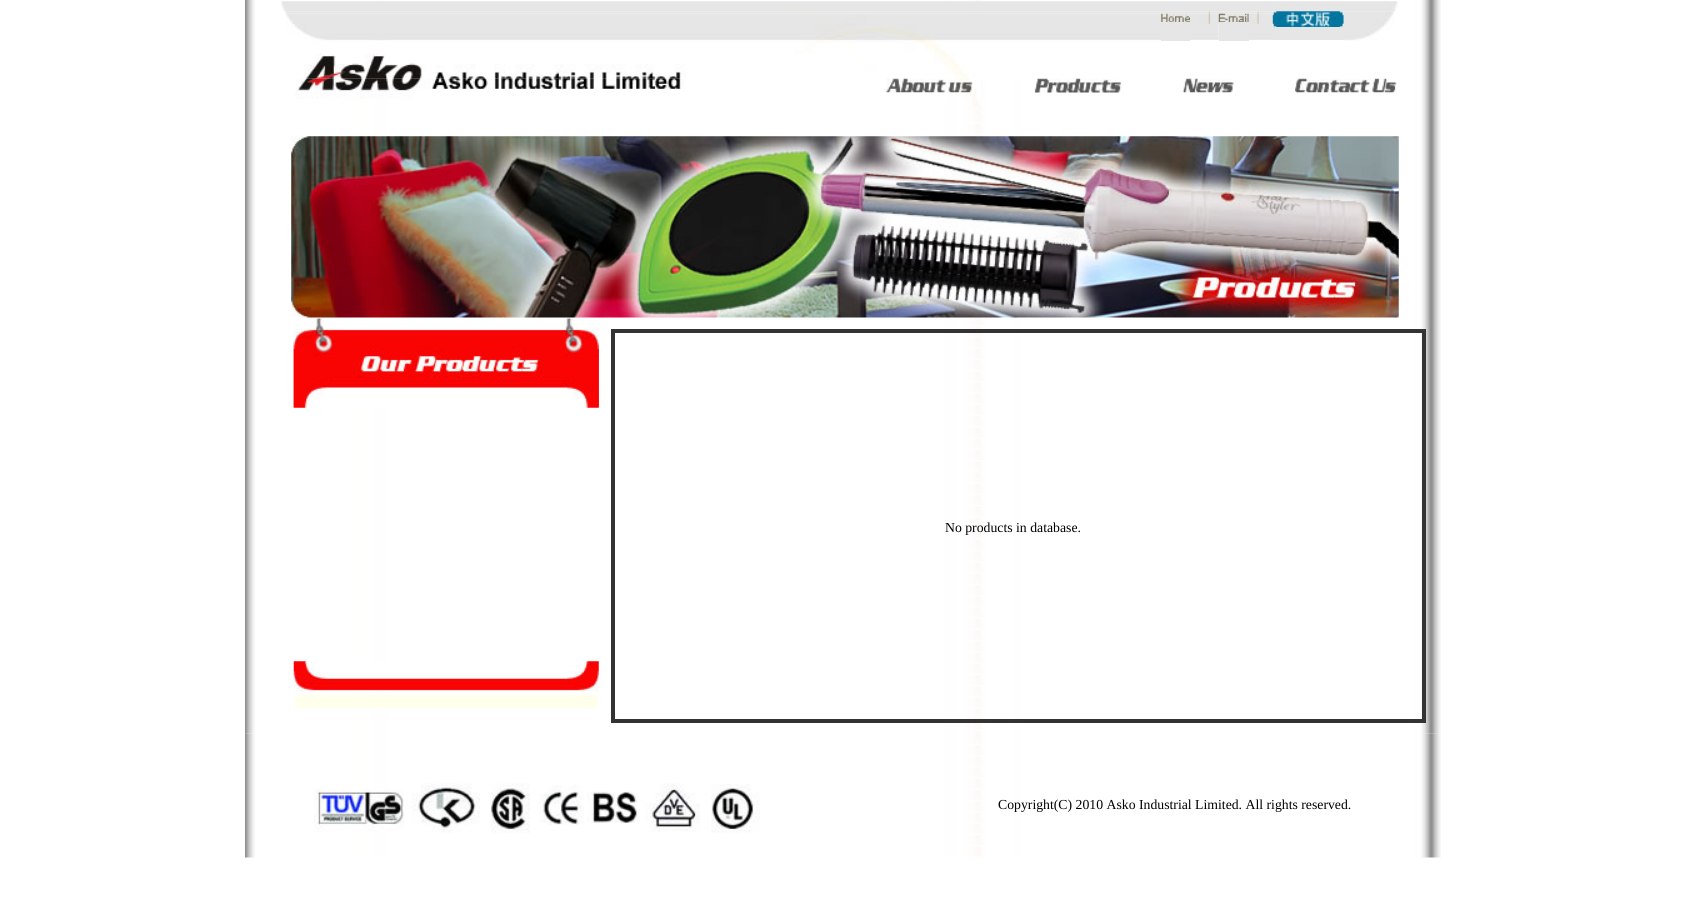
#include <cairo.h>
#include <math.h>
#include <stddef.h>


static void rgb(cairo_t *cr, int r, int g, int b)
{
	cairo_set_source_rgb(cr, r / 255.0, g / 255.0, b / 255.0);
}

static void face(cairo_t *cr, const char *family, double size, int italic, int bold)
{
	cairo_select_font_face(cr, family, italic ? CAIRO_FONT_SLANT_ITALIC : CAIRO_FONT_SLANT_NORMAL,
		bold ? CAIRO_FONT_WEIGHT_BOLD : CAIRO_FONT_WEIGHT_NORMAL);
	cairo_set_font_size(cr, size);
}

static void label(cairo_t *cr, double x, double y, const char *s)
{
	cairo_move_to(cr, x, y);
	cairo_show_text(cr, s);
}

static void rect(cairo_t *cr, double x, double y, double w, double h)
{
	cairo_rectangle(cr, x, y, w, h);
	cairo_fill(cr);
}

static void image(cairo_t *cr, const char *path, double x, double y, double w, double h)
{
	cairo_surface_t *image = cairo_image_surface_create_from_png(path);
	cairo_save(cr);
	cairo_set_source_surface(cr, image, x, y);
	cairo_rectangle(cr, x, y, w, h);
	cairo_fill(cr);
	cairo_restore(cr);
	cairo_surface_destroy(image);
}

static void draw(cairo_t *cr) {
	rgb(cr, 255, 255, 255);
	cairo_paint(cr);
	image(cr, "image0.png", 245, 0, 1196, 734);
	image(cr, "image1.png", 281, 1, 1117, 11);
	image(cr, "image2.png", 285, 11, 988, 3);
	image(cr, "image3.png", 1272, 11, 72, 16);
	image(cr, "image4.png", 1343, 11, 51, 30);
	image(cr, "image5.png", 286, 14, 876, 65);
	image(cr, "image6.png", 1161, 13, 29, 9);
	image(cr, "image7.png", 1190, 13, 29, 27);
	image(cr, "image8.png", 1218, 13, 31, 10);
	image(cr, "image9.png", 1248, 13, 25, 27);
	rgb(cr, 230, 230, 230);
	rect(cr, 1161, 22, 29, 19);
	rect(cr, 1219, 22, 30, 19);
	rect(cr, 1272, 27, 72, 13);
	image(cr, "image10.png", 295, 78, 390, 21);
	image(cr, "image11.png", 886, 78, 87, 15);
	image(cr, "image12.png", 972, 79, 9, 27);
	image(cr, "image13.png", 1034, 78, 88, 15);
	image(cr, "image14.png", 1182, 78, 52, 15);
	image(cr, "image15.png", 1295, 78, 102, 15);
	cairo_set_source_rgba(cr, 1, 1, 1, 0.75);
	rect(cr, 1121, 82, 1, 3);
	cairo_set_source_rgba(cr, 1, 1, 1, 0.25);
	rect(cr, 1233, 82, 1, 3);
	image(cr, "image16.png", 886, 92, 86, 10);
	cairo_set_source_rgba(cr, 1, 1, 1, 0.5);
	rect(cr, 1183, 92, 49, 1);
	rect(cr, 1295, 92, 99, 1);
	image(cr, "image17.png", 975, 111, 4, 7);
	image(cr, "image18.png", 291, 136, 1108, 182);
	image(cr, "image19.png", 293, 318, 306, 90);
	image(cr, "image20.png", 293, 318, 306, 90);
	image(cr, "image21.png", 293, 661, 306, 31);
	rgb(cr, 255, 255, 236);
	rect(cr, 296, 695, 302, 13);
	cairo_rectangle(cr, 613, 331, 811, 390);
	rgb(cr, 51, 51, 51);
	cairo_set_line_width(cr, 4);
	cairo_stroke(cr);
	face(cr, "Liberation Serif", 13.75, 0, 0);
	rgb(cr, 0, 0, 0);
	label(cr, 945, 532, "No products in database.");
	image(cr, "image22.png", 245, 733, 1196, 125);
	image(cr, "image23.png", 314, 789, 90, 43);
	image(cr, "image24.png", 411, 783, 69, 50);
	image(cr, "image25.png", 490, 783, 40, 50);
	image(cr, "image26.png", 539, 785, 45, 40);
	image(cr, "image27.png", 587, 791, 51, 32);
	image(cr, "image28.png", 645, 783, 55, 49);
	image(cr, "image29.png", 711, 784, 49, 49);
	label(cr, 998, 809, "Copyright(C) 2010 Asko Industrial Limited. All rights reserved.");
}

int main(void) {
	cairo_surface_t *surface = cairo_image_surface_create(CAIRO_FORMAT_RGB24, 1689, 912);
	cairo_t *cr = cairo_create(surface);
	cairo_font_options_t *options = cairo_font_options_create();
	cairo_font_options_set_hint_metrics(options, CAIRO_HINT_METRICS_OFF);
	cairo_font_options_set_hint_style(options, CAIRO_HINT_STYLE_NONE);
	cairo_set_font_options(cr, options);
	cairo_set_miter_limit(cr, 4);
	draw(cr);
	cairo_surface_write_to_png(surface, "render.png");
	cairo_font_options_destroy(options);
	cairo_destroy(cr);
	cairo_surface_destroy(surface);
	return 0;
}
